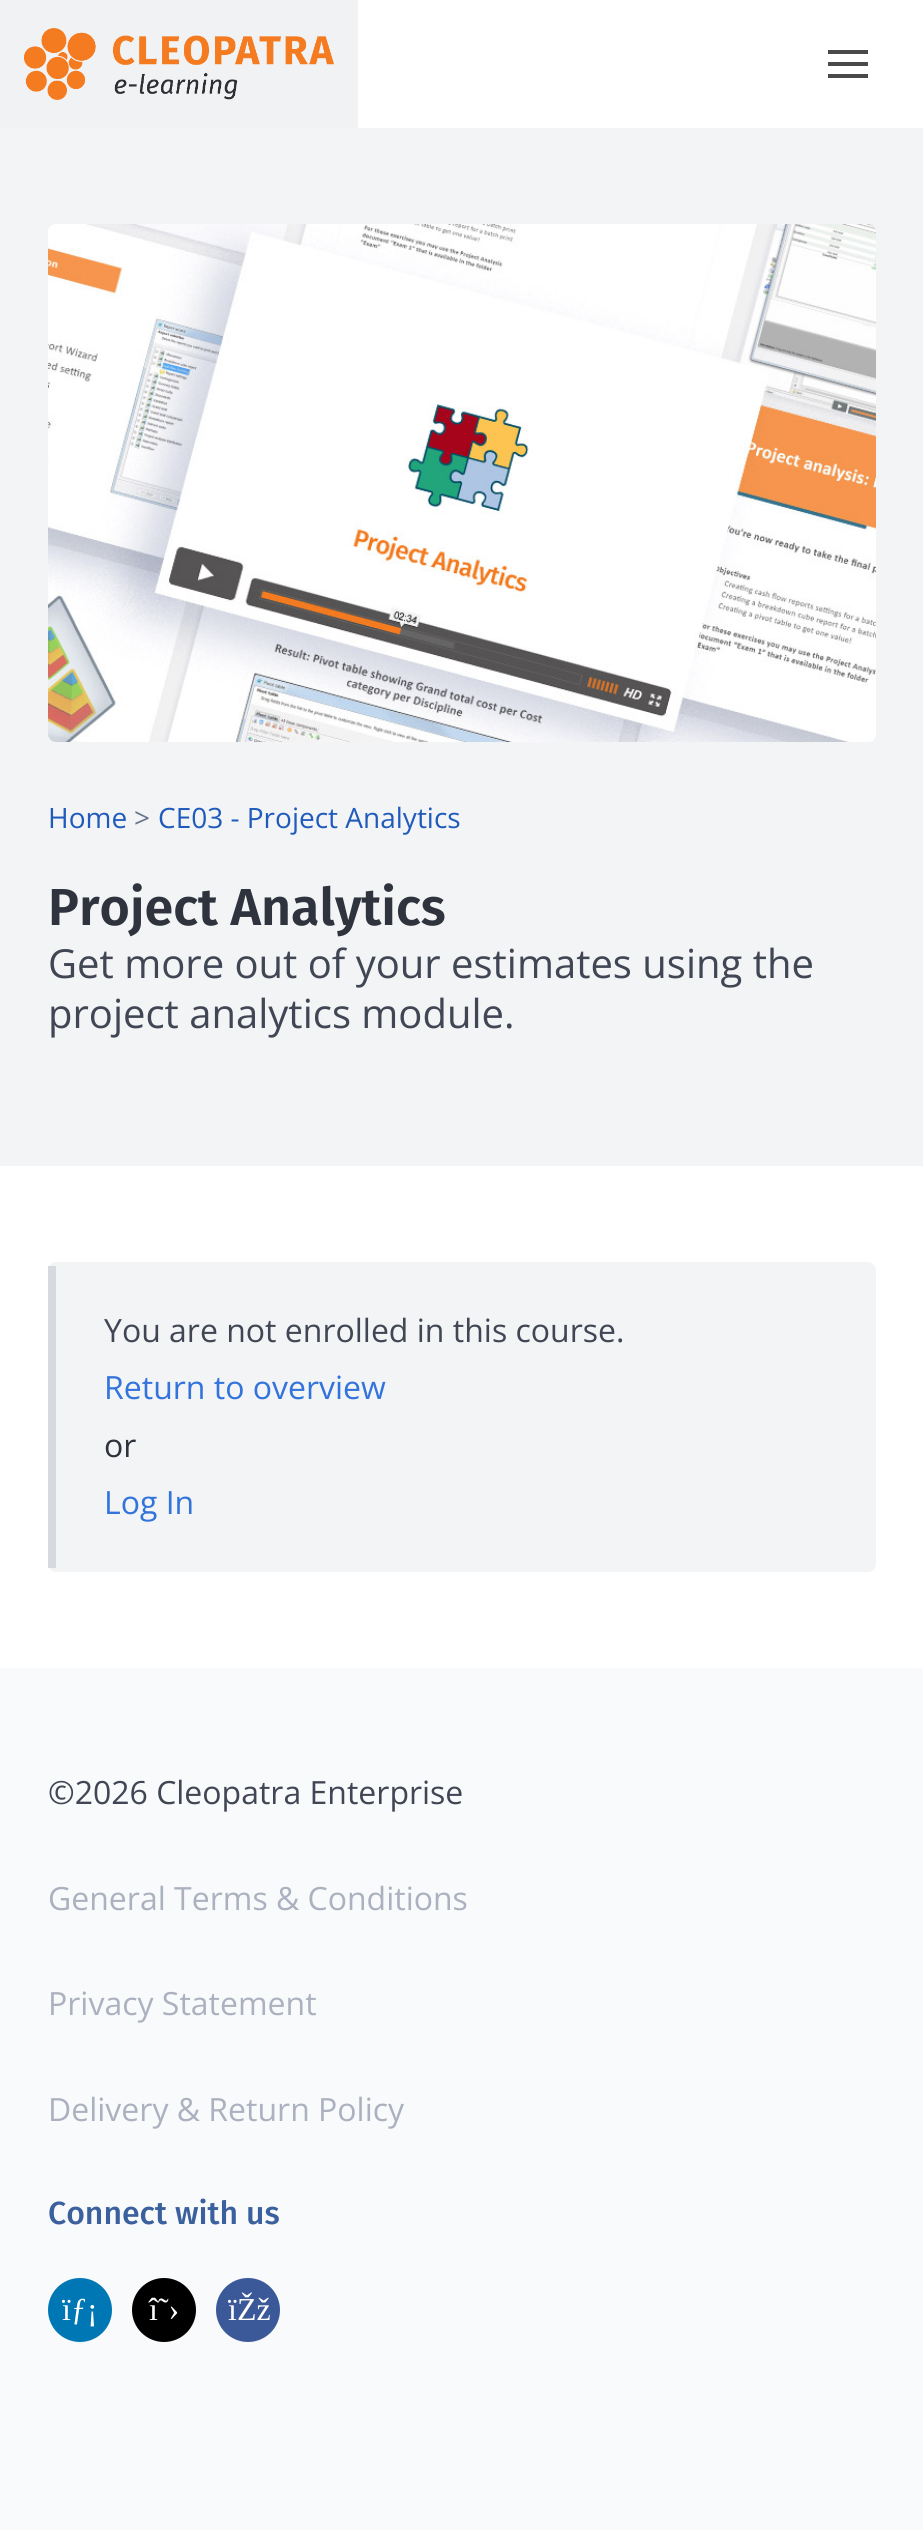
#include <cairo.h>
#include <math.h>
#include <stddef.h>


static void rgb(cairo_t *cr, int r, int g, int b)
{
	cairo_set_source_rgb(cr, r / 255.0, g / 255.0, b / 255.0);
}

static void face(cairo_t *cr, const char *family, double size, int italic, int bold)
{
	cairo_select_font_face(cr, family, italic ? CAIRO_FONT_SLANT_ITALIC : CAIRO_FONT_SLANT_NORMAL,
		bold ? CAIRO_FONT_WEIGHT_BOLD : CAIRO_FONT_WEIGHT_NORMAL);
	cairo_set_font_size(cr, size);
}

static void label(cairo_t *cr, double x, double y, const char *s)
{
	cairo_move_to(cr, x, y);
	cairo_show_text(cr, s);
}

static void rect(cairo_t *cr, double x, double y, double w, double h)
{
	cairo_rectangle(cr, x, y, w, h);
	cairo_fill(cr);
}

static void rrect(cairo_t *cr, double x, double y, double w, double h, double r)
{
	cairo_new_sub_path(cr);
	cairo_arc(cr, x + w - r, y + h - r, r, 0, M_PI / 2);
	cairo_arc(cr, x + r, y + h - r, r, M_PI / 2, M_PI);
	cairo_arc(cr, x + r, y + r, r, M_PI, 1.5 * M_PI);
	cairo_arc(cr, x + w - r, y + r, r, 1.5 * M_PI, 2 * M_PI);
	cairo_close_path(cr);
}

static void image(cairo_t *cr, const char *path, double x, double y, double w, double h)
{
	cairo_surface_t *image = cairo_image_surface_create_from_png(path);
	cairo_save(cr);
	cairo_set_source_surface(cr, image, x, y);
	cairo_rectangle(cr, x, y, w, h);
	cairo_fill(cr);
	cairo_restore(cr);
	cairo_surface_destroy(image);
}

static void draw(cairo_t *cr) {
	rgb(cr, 255, 255, 255);
	cairo_paint(cr);
	rgb(cr, 240, 242, 244);
	rect(cr, 0, 0, 358, 128);
	image(cr, "image0.png", 24, 28, 310, 72);
	rgb(cr, 74, 74, 74);
	rect(cr, 828, 50, 40, 4);
	rect(cr, 828, 62, 40, 4);
	rect(cr, 828, 74, 40, 4);
	rgb(cr, 243, 244, 246);
	rect(cr, 0, 128, 923, 1038);
	image(cr, "image1.png", 48, 224, 828, 518);
	face(cr, "Open Sans", 28, 0, 0);
	rgb(cr, 32, 91, 188);
	label(cr, 48, 828, "Home");
	rgb(cr, 105, 116, 140);
	label(cr, 134, 828, ">");
	rgb(cr, 32, 91, 188);
	label(cr, 158, 828, "CE03 - Project Analytics");
	face(cr, "Fira Sans SemiBold", 52, 0, 0);
	rgb(cr, 46, 51, 61);
	label(cr, 48, 925, "Project Analytics");
	face(cr, "Open Sans", 40, 0, 0);
	rgb(cr, 64, 70, 84);
	label(cr, 48, 978, "Get more out of your estimates using the");
	label(cr, 48, 1028, "project analytics module.");
	rgb(cr, 243, 244, 246);
	rrect(cr, 48, 1262, 828, 310, 8);
	cairo_fill(cr);
	rgb(cr, 214, 217, 224);
	rect(cr, 48, 1266, 8, 302);
	face(cr, "Open Sans", 32, 0, 0);
	rgb(cr, 64, 70, 84);
	label(cr, 104, 1342, "You are not enrolled in this course.");
	rgb(cr, 50, 115, 220);
	label(cr, 104, 1399, "Return to overview");
	rgb(cr, 46, 51, 61);
	label(cr, 104, 1457, "or");
	rgb(cr, 50, 115, 220);
	label(cr, 104, 1514, "Log In");
	rgb(cr, 249, 250, 251);
	rect(cr, 0, 1668, 923, 862);
	rgb(cr, 64, 70, 84);
	label(cr, 48, 1804, "©2026 Cleopatra Enterprise");
	rgb(cr, 171, 177, 191);
	label(cr, 48, 1910, "General Terms & Conditions");
	label(cr, 48, 2015, "Privacy Statement");
	label(cr, 48, 2121, "Delivery & Return Policy");
	face(cr, "Fira Sans Medium", 32, 0, 0);
	rgb(cr, 58, 96, 158);
	label(cr, 48, 2224, "Connect with us");
	rgb(cr, 0, 119, 181);
	cairo_new_path(cr);
	cairo_arc(cr, 80, 2310, 32, 0, 2 * M_PI);
	cairo_fill(cr);
	face(cr, "Liberation Serif", 32, 0, 0);
	rgb(cr, 255, 255, 255);
	label(cr, 62, 2320, "ïƒ¡");
	rgb(cr, 0, 0, 0);
	cairo_new_path(cr);
	cairo_arc(cr, 164, 2310, 32, 0, 2 * M_PI);
	cairo_fill(cr);
	rgb(cr, 255, 255, 255);
	label(cr, 149, 2320, "î˜›");
	rgb(cr, 59, 89, 152);
	cairo_new_path(cr);
	cairo_arc(cr, 248, 2310, 32, 0, 2 * M_PI);
	cairo_fill(cr);
	rgb(cr, 255, 255, 255);
	label(cr, 228, 2320, "ïŽž");
}

int main(void) {
	cairo_surface_t *surface = cairo_image_surface_create(CAIRO_FORMAT_RGB24, 923, 2530);
	cairo_t *cr = cairo_create(surface);
	cairo_font_options_t *options = cairo_font_options_create();
	cairo_font_options_set_hint_metrics(options, CAIRO_HINT_METRICS_OFF);
	cairo_font_options_set_hint_style(options, CAIRO_HINT_STYLE_NONE);
	cairo_set_font_options(cr, options);
	cairo_set_miter_limit(cr, 4);
	draw(cr);
	cairo_surface_write_to_png(surface, "render.png");
	cairo_font_options_destroy(options);
	cairo_destroy(cr);
	cairo_surface_destroy(surface);
	return 0;
}
